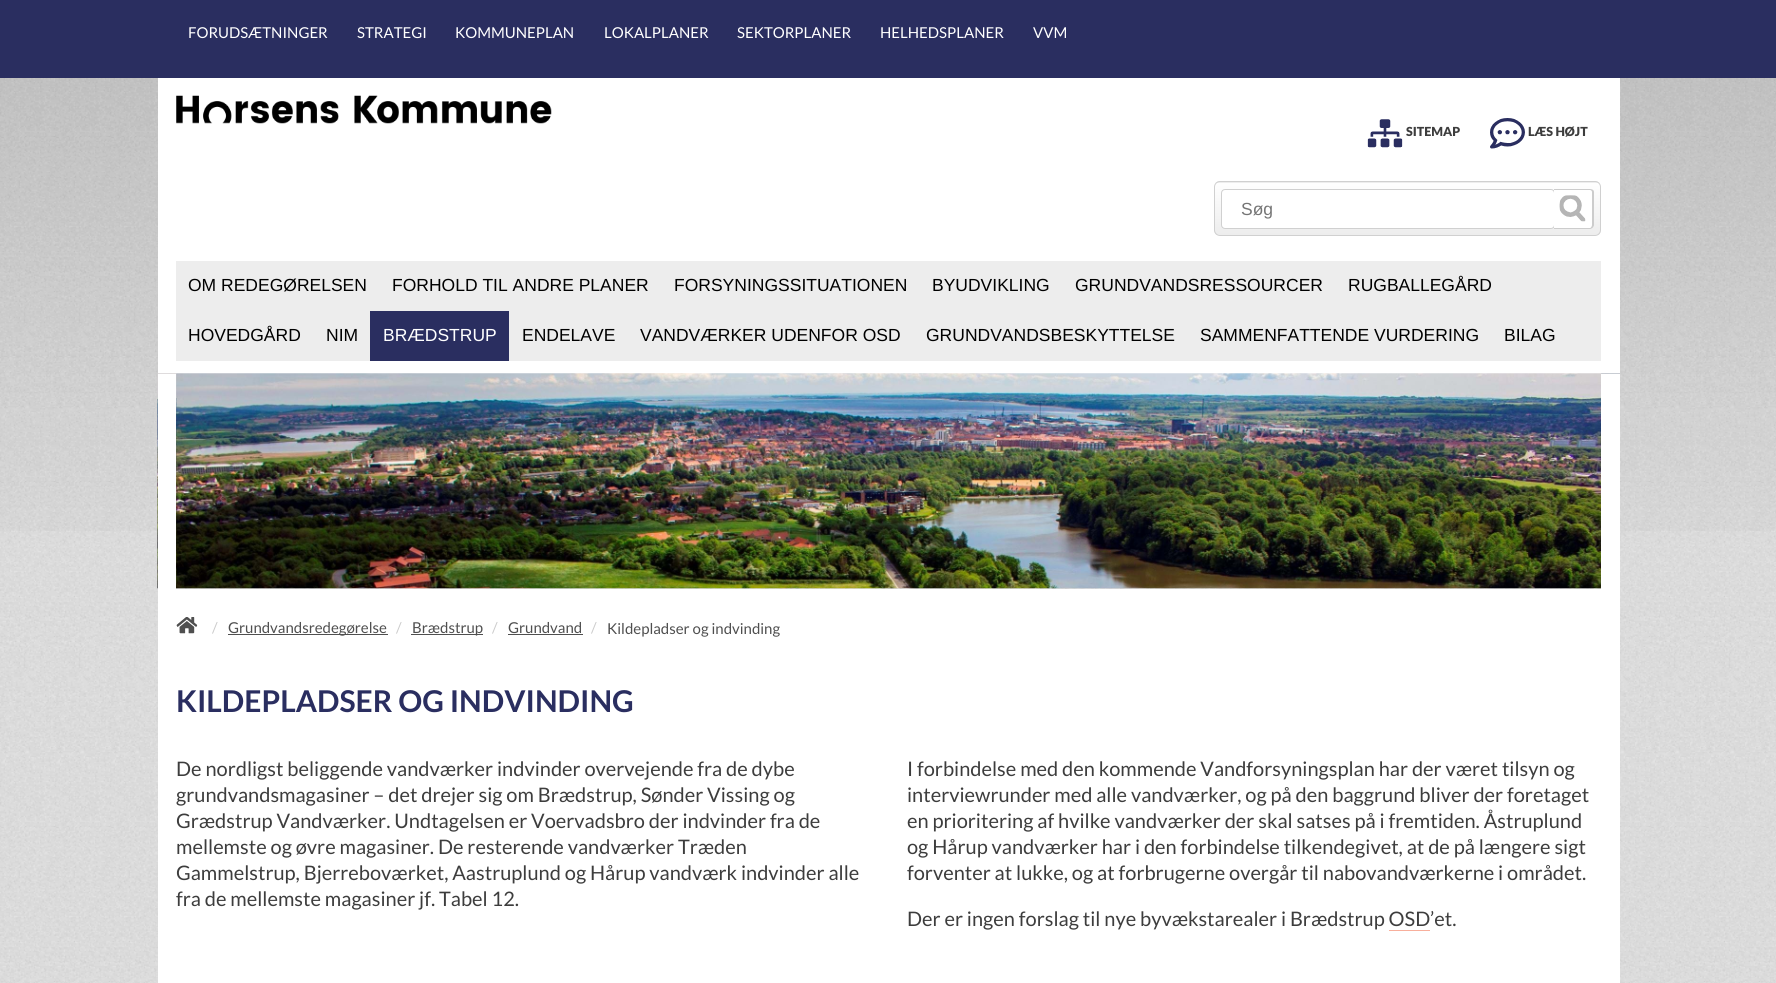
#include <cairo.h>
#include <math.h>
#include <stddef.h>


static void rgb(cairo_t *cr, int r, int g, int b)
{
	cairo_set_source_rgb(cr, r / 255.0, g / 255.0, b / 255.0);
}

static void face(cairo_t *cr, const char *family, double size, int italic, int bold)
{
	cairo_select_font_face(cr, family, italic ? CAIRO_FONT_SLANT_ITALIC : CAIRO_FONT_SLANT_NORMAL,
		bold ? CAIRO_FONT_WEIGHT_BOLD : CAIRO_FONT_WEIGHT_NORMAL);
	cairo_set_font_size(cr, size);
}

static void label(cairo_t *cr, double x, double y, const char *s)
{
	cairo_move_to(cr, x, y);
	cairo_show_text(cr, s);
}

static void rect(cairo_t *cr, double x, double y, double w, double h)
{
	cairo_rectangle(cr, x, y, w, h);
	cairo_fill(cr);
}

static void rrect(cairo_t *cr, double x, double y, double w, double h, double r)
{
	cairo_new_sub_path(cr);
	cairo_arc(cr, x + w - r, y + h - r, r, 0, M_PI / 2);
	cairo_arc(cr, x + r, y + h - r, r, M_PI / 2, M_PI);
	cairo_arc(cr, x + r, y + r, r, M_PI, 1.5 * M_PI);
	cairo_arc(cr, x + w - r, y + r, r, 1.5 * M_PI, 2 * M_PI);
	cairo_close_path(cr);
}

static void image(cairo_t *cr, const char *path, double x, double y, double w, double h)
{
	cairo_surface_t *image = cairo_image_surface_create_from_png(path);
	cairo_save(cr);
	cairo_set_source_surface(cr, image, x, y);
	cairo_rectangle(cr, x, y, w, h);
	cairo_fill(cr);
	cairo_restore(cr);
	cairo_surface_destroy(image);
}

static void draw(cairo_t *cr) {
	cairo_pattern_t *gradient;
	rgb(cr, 255, 255, 255);
	cairo_paint(cr);
	image(cr, "image0.png", 0, 78, 1776, 905);
	image(cr, "image1.png", 0, 78, 1776, 453);
	rgb(cr, 42, 46, 96);
	rect(cr, 0, 0, 1776, 78);
	face(cr, "Lato", 15, 0, 0);
	rgb(cr, 255, 255, 255);
	label(cr, 188, 38, "FORUDSÆTNINGER");
	label(cr, 357, 38, "STRATEGI");
	label(cr, 455, 38, "KOMMUNEPLAN");
	label(cr, 604, 38, "LOKALPLANER");
	label(cr, 737, 38, "SEKTORPLANER");
	label(cr, 880, 38, "HELHEDSPLANER");
	label(cr, 1033, 38, "VVM");
	rect(cr, 158, 78, 1462, 296);
	image(cr, "image2.png", 176, 95, 376, 29);
	image(cr, "image3.png", 1367, 119, 36, 29);
	face(cr, "Lato Black", 12.5, 0, 0);
	rgb(cr, 61, 61, 61);
	label(cr, 1406, 136, "SITEMAP");
	image(cr, "image4.png", 1490, 118, 35, 31);
	label(cr, 1528, 136, "LÆS HØJT");
	cairo_save(cr);
	rrect(cr, 1214, 181, 387, 55, 6);
	cairo_clip(cr);
	gradient = cairo_pattern_create_linear(1408, 130, 1408, 183);
	cairo_pattern_add_color_stop_rgba(gradient, 0, 1, 1, 1, 1);
	cairo_pattern_add_color_stop_rgba(gradient, 1, 0.929, 0.929, 0.929, 1);
	cairo_set_source(cr, gradient);
	cairo_pattern_destroy(gradient);
	rect(cr, 1214, 181, 387, 2);
	gradient = cairo_pattern_create_linear(1408, 182, 1408, 235);
	cairo_pattern_add_color_stop_rgba(gradient, 0, 1, 1, 1, 1);
	cairo_pattern_add_color_stop_rgba(gradient, 1, 0.929, 0.929, 0.929, 1);
	cairo_set_source(cr, gradient);
	cairo_pattern_destroy(gradient);
	rect(cr, 1214, 183, 387, 52);
	cairo_restore(cr);
	rrect(cr, 1214.5, 181.5, 386, 54, 5.5);
	rgb(cr, 208, 208, 208);
	cairo_set_line_width(cr, 1);
	cairo_stroke(cr);
	rgb(cr, 255, 255, 255);
	rrect(cr, 1221.5, 189.5, 333, 39, 3.5);
	cairo_fill_preserve(cr);
	rgb(cr, 208, 208, 208);
	cairo_stroke(cr);
	face(cr, "Liberation Sans", 17.5, 0, 0);
	rgb(cr, 117, 117, 117);
	label(cr, 1241, 215, "Søg");
	rgb(cr, 255, 255, 255);
	cairo_new_path(cr);
	cairo_move_to(cr, 1554, 189);
	cairo_line_to(cr, 1590, 189);
	cairo_curve_to(cr, 1592, 189, 1594, 191, 1594, 193);
	cairo_line_to(cr, 1594, 225);
	cairo_curve_to(cr, 1594, 227, 1592, 229, 1590, 229);
	cairo_line_to(cr, 1554, 229);
	cairo_close_path(cr);
	cairo_fill(cr);
	rgb(cr, 204, 204, 204);
	cairo_set_fill_rule(cr, CAIRO_FILL_RULE_EVEN_ODD);
	cairo_new_path(cr);
	cairo_move_to(cr, 1554, 189);
	cairo_line_to(cr, 1590, 189);
	cairo_curve_to(cr, 1592, 189, 1594, 190, 1594, 192);
	cairo_line_to(cr, 1594, 225);
	cairo_curve_to(cr, 1594, 227, 1592, 229, 1590, 229);
	cairo_line_to(cr, 1554, 229);
	cairo_close_path(cr);
	cairo_move_to(cr, 1554, 190);
	cairo_line_to(cr, 1590, 190);
	cairo_curve_to(cr, 1591, 190, 1592, 191, 1592, 192);
	cairo_line_to(cr, 1592, 225);
	cairo_curve_to(cr, 1592, 226, 1591, 228, 1590, 228);
	cairo_line_to(cr, 1554, 228);
	cairo_close_path(cr);
	cairo_fill(cr);
	image(cr, "image5.png", 1559, 195, 27, 27);
	rgb(cr, 237, 237, 237);
	rect(cr, 176, 261, 1425, 100);
	rgb(cr, 0, 0, 0);
	label(cr, 188, 291, "OM REDEGØRELSEN");
	label(cr, 392, 291, "FORHOLD TIL ANDRE PLANER");
	label(cr, 674, 291, "FORSYNINGSSITUATIONEN");
	label(cr, 932, 291, "BYUDVIKLING");
	label(cr, 1075, 291, "GRUNDVANDSRESSOURCER");
	label(cr, 1348, 291, "RUGBALLEGÅRD");
	label(cr, 188, 341, "HOVEDGÅRD");
	label(cr, 326, 341, "NIM");
	rgb(cr, 42, 46, 96);
	rect(cr, 370, 311, 139, 50);
	rgb(cr, 255, 255, 255);
	label(cr, 383, 341, "BRÆDSTRUP");
	rgb(cr, 0, 0, 0);
	label(cr, 522, 341, "ENDELAVE");
	label(cr, 640, 341, "VANDVÆRKER UDENFOR OSD");
	label(cr, 926, 341, "GRUNDVANDSBESKYTTELSE");
	label(cr, 1200, 341, "SAMMENFATTENDE VURDERING");
	label(cr, 1504, 341, "BILAG");
	image(cr, "image6.png", 157, 373, 1463, 216);
	rgb(cr, 255, 255, 255);
	rect(cr, 1601, 374, 19, 215);
	rect(cr, 158, 374, 18, 215);
	rect(cr, 158, 589, 1462, 394);
	image(cr, "image7.png", 176, 617, 22, 17);
	face(cr, "Lato", 15, 0, 0);
	rgb(cr, 204, 204, 204);
	label(cr, 212, 633, "/");
	rgb(cr, 79, 79, 79);
	rect(cr, 228, 634, 160, 1);
	label(cr, 228, 633, "Grundvandsredegørelse");
	rgb(cr, 204, 204, 204);
	label(cr, 396, 633, "/");
	rgb(cr, 79, 79, 79);
	rect(cr, 411, 634, 72, 1);
	label(cr, 412, 633, "Brædstrup");
	rgb(cr, 204, 204, 204);
	label(cr, 492, 633, "/");
	rgb(cr, 79, 79, 79);
	label(cr, 508, 633, "Grundvand");
	rect(cr, 508, 634, 75, 1);
	rgb(cr, 204, 204, 204);
	label(cr, 591, 633, "/");
	rgb(cr, 79, 79, 79);
	label(cr, 607, 634, "Kildepladser og indvinding");
	face(cr, "Lato", 30, 0, 1);
	rgb(cr, 42, 46, 96);
	label(cr, 176, 712, "KILDEPLADSER OG INDVINDING");
	face(cr, "Lato", 20, 0, 0);
	rgb(cr, 61, 61, 61);
	label(cr, 176, 776, "De nordligst beliggende vandværker indvinder overvejende fra de dybe");
	label(cr, 176, 802, "grundvandsmagasiner – det drejer sig om Brædstrup, Sønder Vissing og");
	label(cr, 176, 828, "Grædstrup Vandværker. Undtagelsen er Voervadsbro der indvinder fra de");
	label(cr, 176, 854, "mellemste og øvre magasiner. De resterende vandværker Træden");
	label(cr, 176, 880, "Gammelstrup, Bjerreboværket, Aastruplund og Hårup vandværk indvinder alle");
	label(cr, 176, 906, "fra de mellemste magasiner jf. Tabel 12.");
	label(cr, 907, 776, "I forbindelse med den kommende Vandforsyningsplan har der været tilsyn og");
	label(cr, 907, 802, "interviewrunder med alle vandværker, og på den baggrund bliver der foretaget");
	label(cr, 907, 828, "en prioritering af hvilke vandværker der skal satses på i fremtiden. Åstruplund");
	label(cr, 907, 854, "og Hårup vandværker har i den forbindelse tilkendegivet, at de på længere sigt");
	label(cr, 907, 880, "forventer at lukke, og at forbrugerne overgår til nabovandværkerne i området.");
	label(cr, 907, 926, "Der er ingen forslag til nye byvækstarealer i Brædstrup OSD");
	label(cr, 1430, 926, "’et.");
	rgb(cr, 248, 175, 156);
	rect(cr, 1389, 930, 41, 1);
}

int main(void) {
	cairo_surface_t *surface = cairo_image_surface_create(CAIRO_FORMAT_RGB24, 1776, 983);
	cairo_t *cr = cairo_create(surface);
	cairo_font_options_t *options = cairo_font_options_create();
	cairo_font_options_set_hint_metrics(options, CAIRO_HINT_METRICS_OFF);
	cairo_font_options_set_hint_style(options, CAIRO_HINT_STYLE_NONE);
	cairo_set_font_options(cr, options);
	cairo_set_miter_limit(cr, 4);
	draw(cr);
	cairo_surface_write_to_png(surface, "render.png");
	cairo_font_options_destroy(options);
	cairo_destroy(cr);
	cairo_surface_destroy(surface);
	return 0;
}
